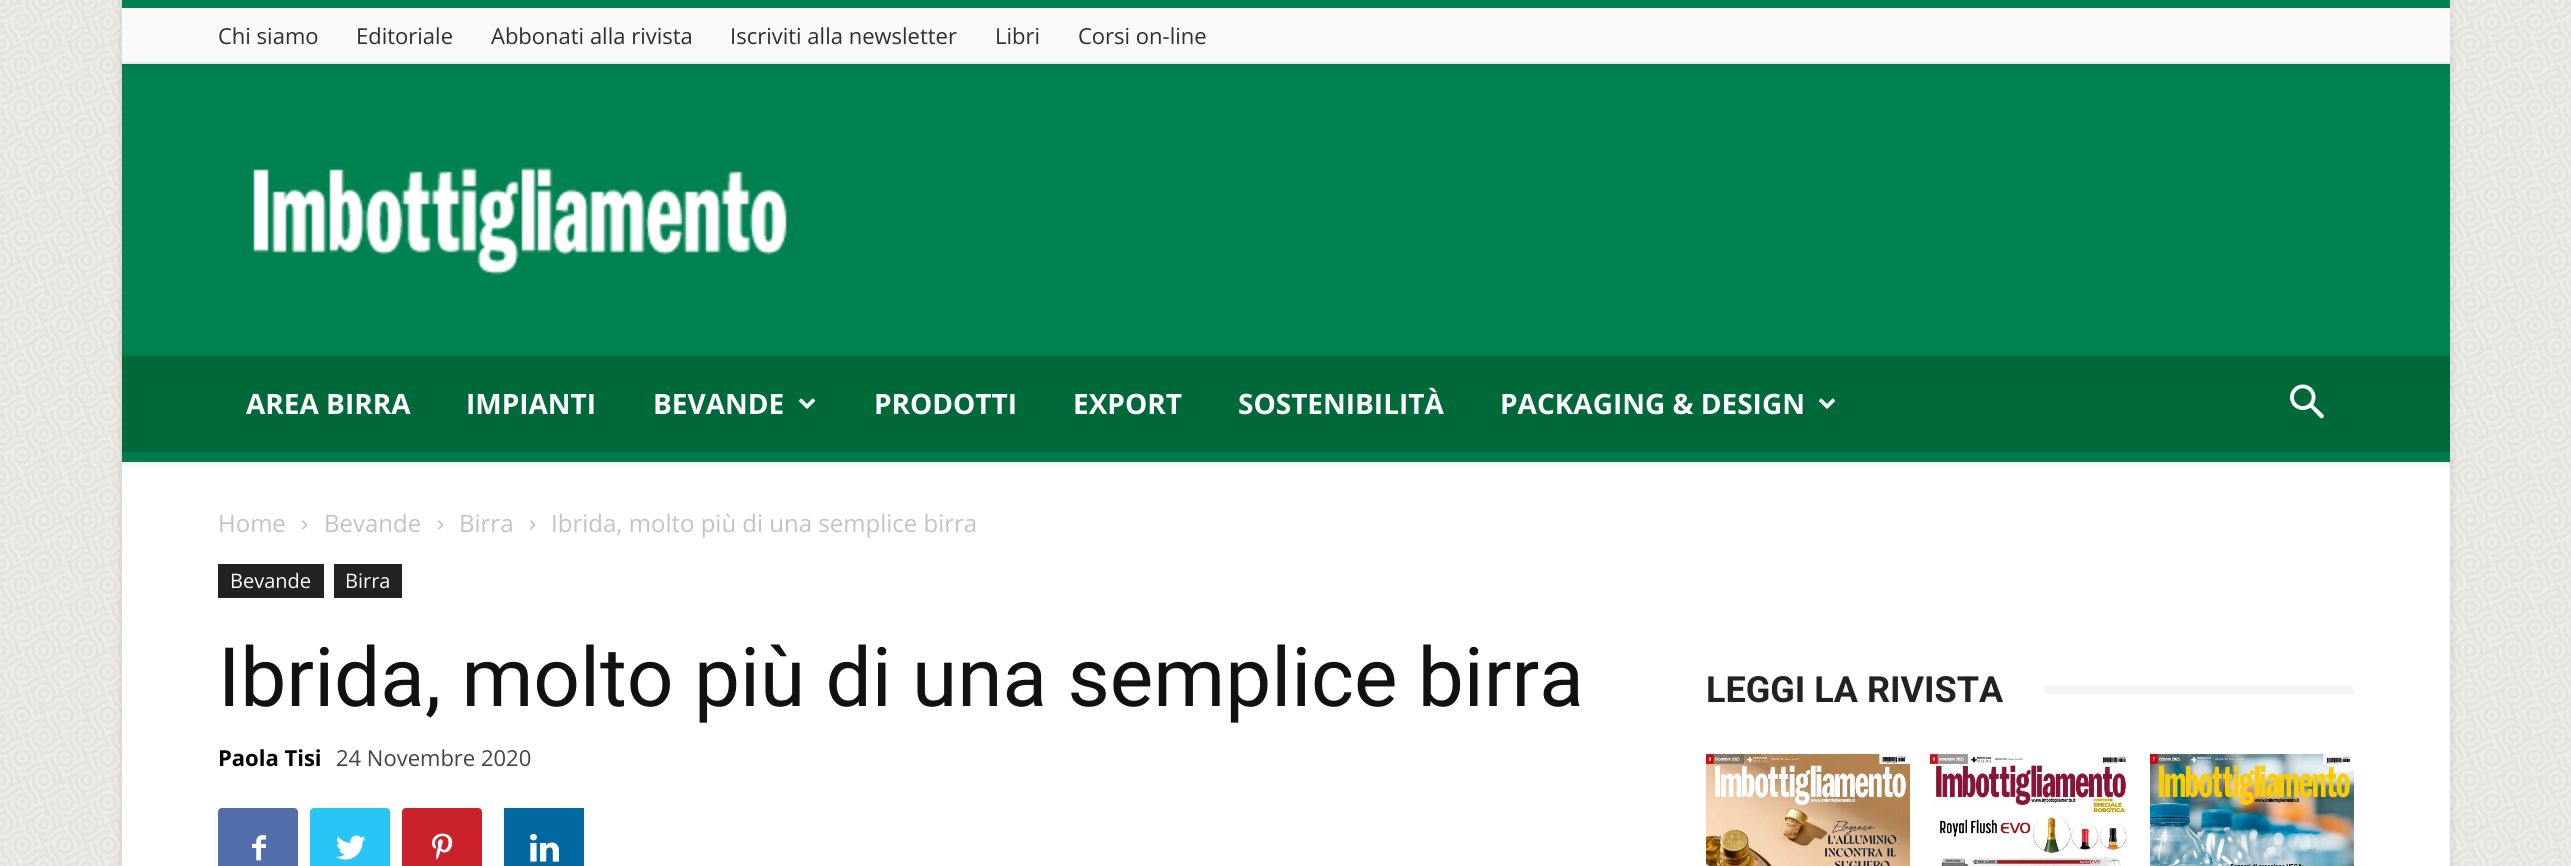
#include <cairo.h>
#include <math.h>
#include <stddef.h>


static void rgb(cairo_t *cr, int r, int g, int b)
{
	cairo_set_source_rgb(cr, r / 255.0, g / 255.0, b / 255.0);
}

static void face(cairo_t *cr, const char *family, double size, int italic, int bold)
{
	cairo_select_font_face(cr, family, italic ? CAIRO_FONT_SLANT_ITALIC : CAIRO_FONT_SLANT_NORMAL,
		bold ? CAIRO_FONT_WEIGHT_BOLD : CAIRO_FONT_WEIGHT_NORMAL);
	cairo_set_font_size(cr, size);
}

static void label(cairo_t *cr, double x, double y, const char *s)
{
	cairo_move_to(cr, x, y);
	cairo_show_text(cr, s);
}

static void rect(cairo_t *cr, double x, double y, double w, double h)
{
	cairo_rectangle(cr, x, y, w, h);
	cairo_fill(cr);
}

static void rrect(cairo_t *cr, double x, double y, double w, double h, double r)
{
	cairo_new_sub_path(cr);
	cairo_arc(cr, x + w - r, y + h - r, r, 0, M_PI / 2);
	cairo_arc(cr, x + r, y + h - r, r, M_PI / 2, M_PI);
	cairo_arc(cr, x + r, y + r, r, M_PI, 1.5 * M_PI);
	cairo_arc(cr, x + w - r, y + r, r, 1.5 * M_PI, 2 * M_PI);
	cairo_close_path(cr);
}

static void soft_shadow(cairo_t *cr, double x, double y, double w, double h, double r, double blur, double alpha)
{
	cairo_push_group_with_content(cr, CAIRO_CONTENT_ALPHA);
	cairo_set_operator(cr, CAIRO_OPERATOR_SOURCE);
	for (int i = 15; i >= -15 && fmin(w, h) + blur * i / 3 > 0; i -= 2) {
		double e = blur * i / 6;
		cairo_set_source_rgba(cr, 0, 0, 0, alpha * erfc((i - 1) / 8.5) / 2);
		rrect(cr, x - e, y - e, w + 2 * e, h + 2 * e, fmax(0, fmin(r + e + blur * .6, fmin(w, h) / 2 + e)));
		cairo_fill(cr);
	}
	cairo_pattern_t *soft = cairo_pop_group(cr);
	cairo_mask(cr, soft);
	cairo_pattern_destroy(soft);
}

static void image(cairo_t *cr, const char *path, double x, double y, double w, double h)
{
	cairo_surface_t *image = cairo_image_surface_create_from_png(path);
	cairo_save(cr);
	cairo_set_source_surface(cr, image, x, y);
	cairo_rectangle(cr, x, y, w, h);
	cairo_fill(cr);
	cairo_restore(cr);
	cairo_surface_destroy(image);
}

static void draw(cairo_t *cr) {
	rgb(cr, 255, 255, 255);
	cairo_paint(cr);
	image(cr, "image0.png", 0, 0, 2571, 866);
	rgb(cr, 0, 0, 0);
	soft_shadow(cr, 122, 64, 2328, 292, 0, 5, 0.12);
	rgb(cr, 0, 130, 80);
	rect(cr, 122, 64, 2328, 292);
	rgb(cr, 0, 0, 0);
	soft_shadow(cr, 122, 0, 2328, 64, 0, 5, 0.12);
	rgb(cr, 249, 249, 249);
	rect(cr, 122, 8, 2328, 54);
	rgb(cr, 0, 130, 80);
	rect(cr, 122, 0, 2328, 8);
	rgb(cr, 233, 233, 233);
	rect(cr, 122, 62, 2328, 2);
	face(cr, "Open Sans", 22, 0, 0);
	rgb(cr, 47, 47, 47);
	label(cr, 218, 44, "Chi siamo");
	label(cr, 356, 44, "Editoriale");
	label(cr, 491, 44, "Abbonati alla rivista");
	label(cr, 730, 44, "Iscriviti alla newsletter");
	label(cr, 995, 44, "Libri");
	label(cr, 1078, 44, "Corsi on-line");
	image(cr, "image1.png", 253, 167, 534, 108);
	rgb(cr, 0, 0, 0);
	soft_shadow(cr, 122, 462, 2328, 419, 0, 5, 0.12);
	rgb(cr, 255, 255, 255);
	rect(cr, 122, 462, 2328, 404);
	rgb(cr, 0, 0, 0);
	soft_shadow(cr, 122, 356, 2328, 106, 0, 5, 0.12);
	rgb(cr, 0, 105, 58);
	rect(cr, 122, 356, 2328, 96);
	face(cr, "Open Sans", 28, 0, 1);
	rgb(cr, 255, 255, 255);
	label(cr, 246, 414, "AREA BIRRA");
	label(cr, 466, 414, "IMPIANTI");
	label(cr, 653, 414, "BEVANDE");
	image(cr, "image2.png", 798, 398, 18, 11);
	label(cr, 874, 414, "PRODOTTI");
	label(cr, 1073, 414, "EXPORT");
	label(cr, 1238, 414, "SOSTENIBILITÀ");
	label(cr, 1500, 414, "PACKAGING & DESIGN");
	image(cr, "image2.png", 1818, 398, 18, 11);
	image(cr, "image3.png", 2290, 384, 34, 35);
	rgb(cr, 0, 130, 80);
	rect(cr, 122, 452, 2328, 10);
	image(cr, "image4.png", 122, 452, 2328, 10);
	face(cr, "Open Sans", 24, 0, 0);
	rgb(cr, 195, 195, 195);
	label(cr, 218, 532, "Home");
	image(cr, "image5.png", 302, 520, 6, 10);
	label(cr, 324, 532, "Bevande");
	image(cr, "image5.png", 438, 520, 6, 10);
	label(cr, 459, 532, "Birra");
	image(cr, "image5.png", 530, 520, 6, 10);
	label(cr, 551, 532, "Ibrida, molto più di una semplice birra");
	rgb(cr, 34, 34, 34);
	rect(cr, 218, 564, 106, 34);
	face(cr, "Open Sans", 20, 0, 0);
	rgb(cr, 255, 255, 255);
	label(cr, 230, 588, "Bevande");
	rgb(cr, 34, 34, 34);
	rect(cr, 334, 564, 68, 34);
	rgb(cr, 255, 255, 255);
	label(cr, 345, 588, "Birra");
	face(cr, "Roboto", 82, 0, 0);
	rgb(cr, 17, 17, 17);
	label(cr, 218, 706, "Ibrida, molto più di una semplice birra");
	face(cr, "Open Sans", 22, 0, 1);
	rgb(cr, 0, 0, 0);
	label(cr, 218, 766, "Paola Tisi");
	face(cr, "Open Sans", 22, 0, 0);
	rgb(cr, 68, 68, 68);
	label(cr, 336, 766, "24 Novembre 2020");
	rgb(cr, 81, 110, 171);
	rrect(cr, 218, 808, 80, 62, 4);
	cairo_fill(cr);
	image(cr, "image6.png", 252, 835, 14, 26);
	rgb(cr, 41, 197, 246);
	rrect(cr, 310, 808, 80, 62, 4);
	cairo_fill(cr);
	image(cr, "image7.png", 336, 835, 30, 25);
	rgb(cr, 202, 33, 42);
	rrect(cr, 402, 808, 80, 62, 4);
	cairo_fill(cr);
	image(cr, "image8.png", 432, 833, 21, 27);
	rgb(cr, 0, 102, 153);
	rect(cr, 504, 808, 80, 4);
	rgb(cr, 2, 102, 160);
	rrect(cr, 504, 808, 80, 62, 4);
	cairo_fill(cr);
	image(cr, "image9.png", 530, 833, 29, 29);
	face(cr, "Roboto", 36, 0, 1);
	rgb(cr, 34, 34, 34);
	label(cr, 1706, 702, "LEGGI LA RIVISTA");
	rgb(cr, 245, 245, 245);
	rect(cr, 2044, 686, 310, 8);
	image(cr, "image10.png", 1706, 754, 204, 112);
	image(cr, "image11.png", 1930, 754, 200, 112);
	image(cr, "image12.png", 2150, 754, 204, 112);
}

int main(void) {
	cairo_surface_t *surface = cairo_image_surface_create(CAIRO_FORMAT_RGB24, 2571, 866);
	cairo_t *cr = cairo_create(surface);
	cairo_font_options_t *options = cairo_font_options_create();
	cairo_font_options_set_hint_metrics(options, CAIRO_HINT_METRICS_OFF);
	cairo_font_options_set_hint_style(options, CAIRO_HINT_STYLE_NONE);
	cairo_set_font_options(cr, options);
	cairo_set_miter_limit(cr, 4);
	draw(cr);
	cairo_surface_write_to_png(surface, "render.png");
	cairo_font_options_destroy(options);
	cairo_destroy(cr);
	cairo_surface_destroy(surface);
	return 0;
}
